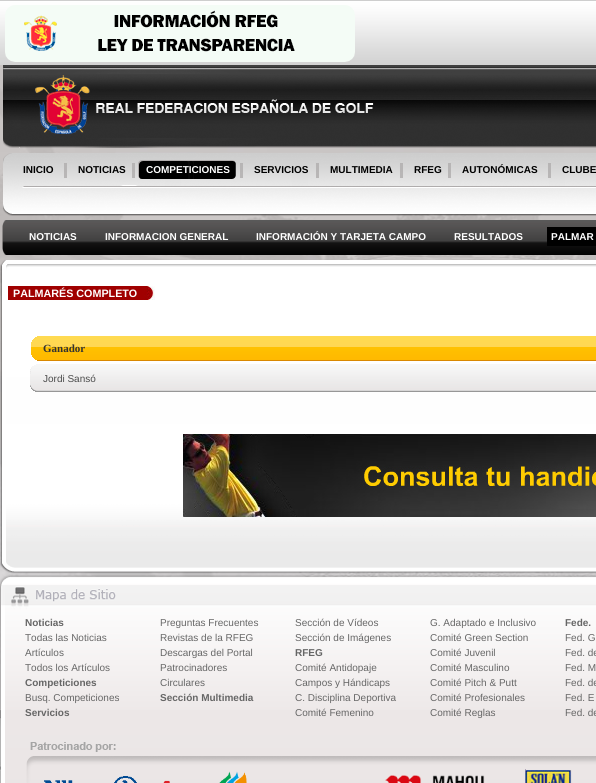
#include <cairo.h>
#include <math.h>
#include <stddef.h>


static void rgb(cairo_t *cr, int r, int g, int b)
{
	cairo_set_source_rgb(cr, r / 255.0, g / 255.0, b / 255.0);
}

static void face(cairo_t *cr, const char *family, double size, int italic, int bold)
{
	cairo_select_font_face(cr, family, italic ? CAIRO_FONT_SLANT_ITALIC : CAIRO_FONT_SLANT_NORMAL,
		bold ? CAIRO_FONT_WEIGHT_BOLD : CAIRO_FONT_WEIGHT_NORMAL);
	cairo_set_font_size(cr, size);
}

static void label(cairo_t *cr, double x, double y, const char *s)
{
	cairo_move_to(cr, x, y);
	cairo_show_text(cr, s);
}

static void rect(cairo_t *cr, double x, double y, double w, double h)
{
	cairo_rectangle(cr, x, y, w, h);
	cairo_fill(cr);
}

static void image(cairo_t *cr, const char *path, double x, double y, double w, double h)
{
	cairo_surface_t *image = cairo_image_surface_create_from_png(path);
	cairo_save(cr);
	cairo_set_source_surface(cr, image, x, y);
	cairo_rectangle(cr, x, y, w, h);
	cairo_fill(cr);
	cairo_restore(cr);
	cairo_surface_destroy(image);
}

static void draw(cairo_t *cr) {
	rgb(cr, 255, 255, 255);
	cairo_paint(cr);
	image(cr, "image0.png", 0, 65, 596, 718);
	image(cr, "image1.png", 0, 0, 596, 65);
	image(cr, "image2.png", 5, 5, 350, 57);
	image(cr, "image3.png", 3, 65, 593, 83);
	image(cr, "image4.png", 35, 75, 339, 59);
	image(cr, "image5.png", 3, 153, 593, 63);
	face(cr, "Liberation Sans", 10, 0, 1);
	rgb(cr, 0, 0, 0);
	label(cr, 23, 173, "INICIO");
	cairo_set_source_rgba(cr, 0.698, 0.686, 0.686, 0.85);
	rect(cr, 64, 163, 3, 15);
	rgb(cr, 0, 0, 0);
	label(cr, 78, 173, "NOTICIAS");
	cairo_set_source_rgba(cr, 0.698, 0.686, 0.686, 0.85);
	rect(cr, 132, 163, 3, 15);
	image(cr, "image6.png", 138, 160, 98, 19);
	rgb(cr, 255, 255, 255);
	label(cr, 146, 173, "COMPETICIONES");
	cairo_set_source_rgba(cr, 0.698, 0.686, 0.686, 0.85);
	rect(cr, 240, 163, 3, 15);
	rgb(cr, 0, 0, 0);
	label(cr, 254, 173, "SERVICIOS");
	cairo_set_source_rgba(cr, 0.698, 0.686, 0.686, 0.85);
	rect(cr, 316, 163, 3, 15);
	rgb(cr, 0, 0, 0);
	label(cr, 330, 173, "MULTIMEDIA");
	cairo_set_source_rgba(cr, 0.698, 0.686, 0.686, 0.85);
	rect(cr, 400, 163, 3, 15);
	rgb(cr, 0, 0, 0);
	label(cr, 414, 173, "RFEG");
	cairo_set_source_rgba(cr, 0.698, 0.686, 0.686, 0.85);
	rect(cr, 448, 163, 3, 15);
	rgb(cr, 0, 0, 0);
	label(cr, 462, 173, "AUTONÓMICAS");
	cairo_set_source_rgba(cr, 0.698, 0.686, 0.686, 0.85);
	rect(cr, 548, 163, 3, 15);
	rgb(cr, 0, 0, 0);
	label(cr, 562, 173, "CLUBE");
	image(cr, "image7.png", 2, 220, 594, 35);
	rgb(cr, 255, 255, 255);
	label(cr, 29, 240, "NOTICIAS");
	label(cr, 105, 240, "INFORMACION GENERAL");
	label(cr, 256, 240, "INFORMACIÓN Y TARJETA CAMPO");
	label(cr, 454, 240, "RESULTADOS");
	rgb(cr, 0, 0, 0);
	rect(cr, 547, 227, 49, 19);
	rgb(cr, 255, 255, 255);
	label(cr, 551, 240, "PALMAR");
	image(cr, "image8.png", 0, 260, 596, 40);
	image(cr, "image9.png", 8, 286, 147, 14);
	face(cr, "Liberation Sans", 10.75, 0, 1);
	label(cr, 13, 297, "PALMARÉS COMPLETO");
	image(cr, "image10.png", 0, 300, 596, 124);
	image(cr, "image11.png", 31, 336, 9, 25);
	image(cr, "image12.png", 40, 336, 556, 25);
	face(cr, "Liberation Serif", 11, 0, 1);
	rgb(cr, 51, 51, 51);
	label(cr, 43, 352, "Ganador");
	image(cr, "image13.png", 30, 364, 10, 28);
	image(cr, "image14.png", 40, 364, 556, 28);
	face(cr, "Liberation Sans", 10, 0, 0);
	rgb(cr, 76, 76, 76);
	label(cr, 43, 382, "Jordi Sansó");
	image(cr, "image15.png", 0, 424, 596, 150);
	image(cr, "image16.png", 183, 434, 413, 83);
	image(cr, "image17.png", 0, 574, 596, 209);
	face(cr, "Liberation Sans", 10, 0, 1);
	rgb(cr, 102, 102, 102);
	label(cr, 25, 626, "Noticias");
	face(cr, "Liberation Sans", 10, 0, 0);
	label(cr, 25, 641, "Todas las Noticias");
	label(cr, 25, 656, "Artículos");
	label(cr, 25, 671, "Todos los Artículos");
	face(cr, "Liberation Sans", 10, 0, 1);
	label(cr, 25, 686, "Competiciones");
	face(cr, "Liberation Sans", 10, 0, 0);
	label(cr, 25, 701, "Busq. Competiciones");
	face(cr, "Liberation Sans", 10, 0, 1);
	label(cr, 25, 716, "Servicios");
	face(cr, "Liberation Sans", 10, 0, 0);
	label(cr, 160, 626, "Preguntas Frecuentes");
	label(cr, 160, 641, "Revistas de la RFEG");
	label(cr, 160, 656, "Descargas del Portal");
	label(cr, 160, 671, "Patrocinadores");
	label(cr, 160, 686, "Circulares");
	face(cr, "Liberation Sans", 10, 0, 1);
	label(cr, 160, 701, "Sección Multimedia");
	face(cr, "Liberation Sans", 10, 0, 0);
	label(cr, 295, 626, "Sección de Vídeos");
	label(cr, 295, 641, "Sección de Imágenes");
	face(cr, "Liberation Sans", 10, 0, 1);
	label(cr, 295, 656, "RFEG");
	face(cr, "Liberation Sans", 10, 0, 0);
	label(cr, 295, 671, "Comité Antidopaje");
	label(cr, 295, 686, "Campos y Hándicaps");
	label(cr, 295, 701, "C. Disciplina Deportiva");
	label(cr, 295, 716, "Comité Femenino");
	label(cr, 430, 626, "G. Adaptado e Inclusivo");
	label(cr, 430, 641, "Comité Green Section");
	label(cr, 430, 656, "Comité Juvenil");
	label(cr, 430, 671, "Comité Masculino");
	label(cr, 430, 686, "Comité Pitch & Putt");
	label(cr, 430, 701, "Comité Profesionales");
	label(cr, 430, 716, "Comité Reglas");
	face(cr, "Liberation Sans", 10, 0, 1);
	label(cr, 565, 626, "Fede.");
	face(cr, "Liberation Sans", 10, 0, 0);
	label(cr, 565, 641, "Fed. G");
	label(cr, 565, 656, "Fed. de");
	label(cr, 565, 671, "Fed. M");
	label(cr, 565, 686, "Fed. de");
	label(cr, 565, 701, "Fed. E");
	label(cr, 565, 716, "Fed. de");
	image(cr, "image18.png", 26, 742, 570, 41);
	image(cr, "image19.png", 44, 776, 93, 7);
	image(cr, "image20.png", 163, 780, 7, 3);
	image(cr, "image21.png", 219, 771, 28, 12);
	image(cr, "image22.png", 385, 775, 100, 8);
	image(cr, "image23.png", 525, 769, 47, 14);
}

int main(void) {
	cairo_surface_t *surface = cairo_image_surface_create(CAIRO_FORMAT_RGB24, 596, 783);
	cairo_t *cr = cairo_create(surface);
	cairo_font_options_t *options = cairo_font_options_create();
	cairo_font_options_set_hint_metrics(options, CAIRO_HINT_METRICS_OFF);
	cairo_font_options_set_hint_style(options, CAIRO_HINT_STYLE_NONE);
	cairo_set_font_options(cr, options);
	cairo_set_miter_limit(cr, 4);
	draw(cr);
	cairo_surface_write_to_png(surface, "render.png");
	cairo_font_options_destroy(options);
	cairo_destroy(cr);
	cairo_surface_destroy(surface);
	return 0;
}
